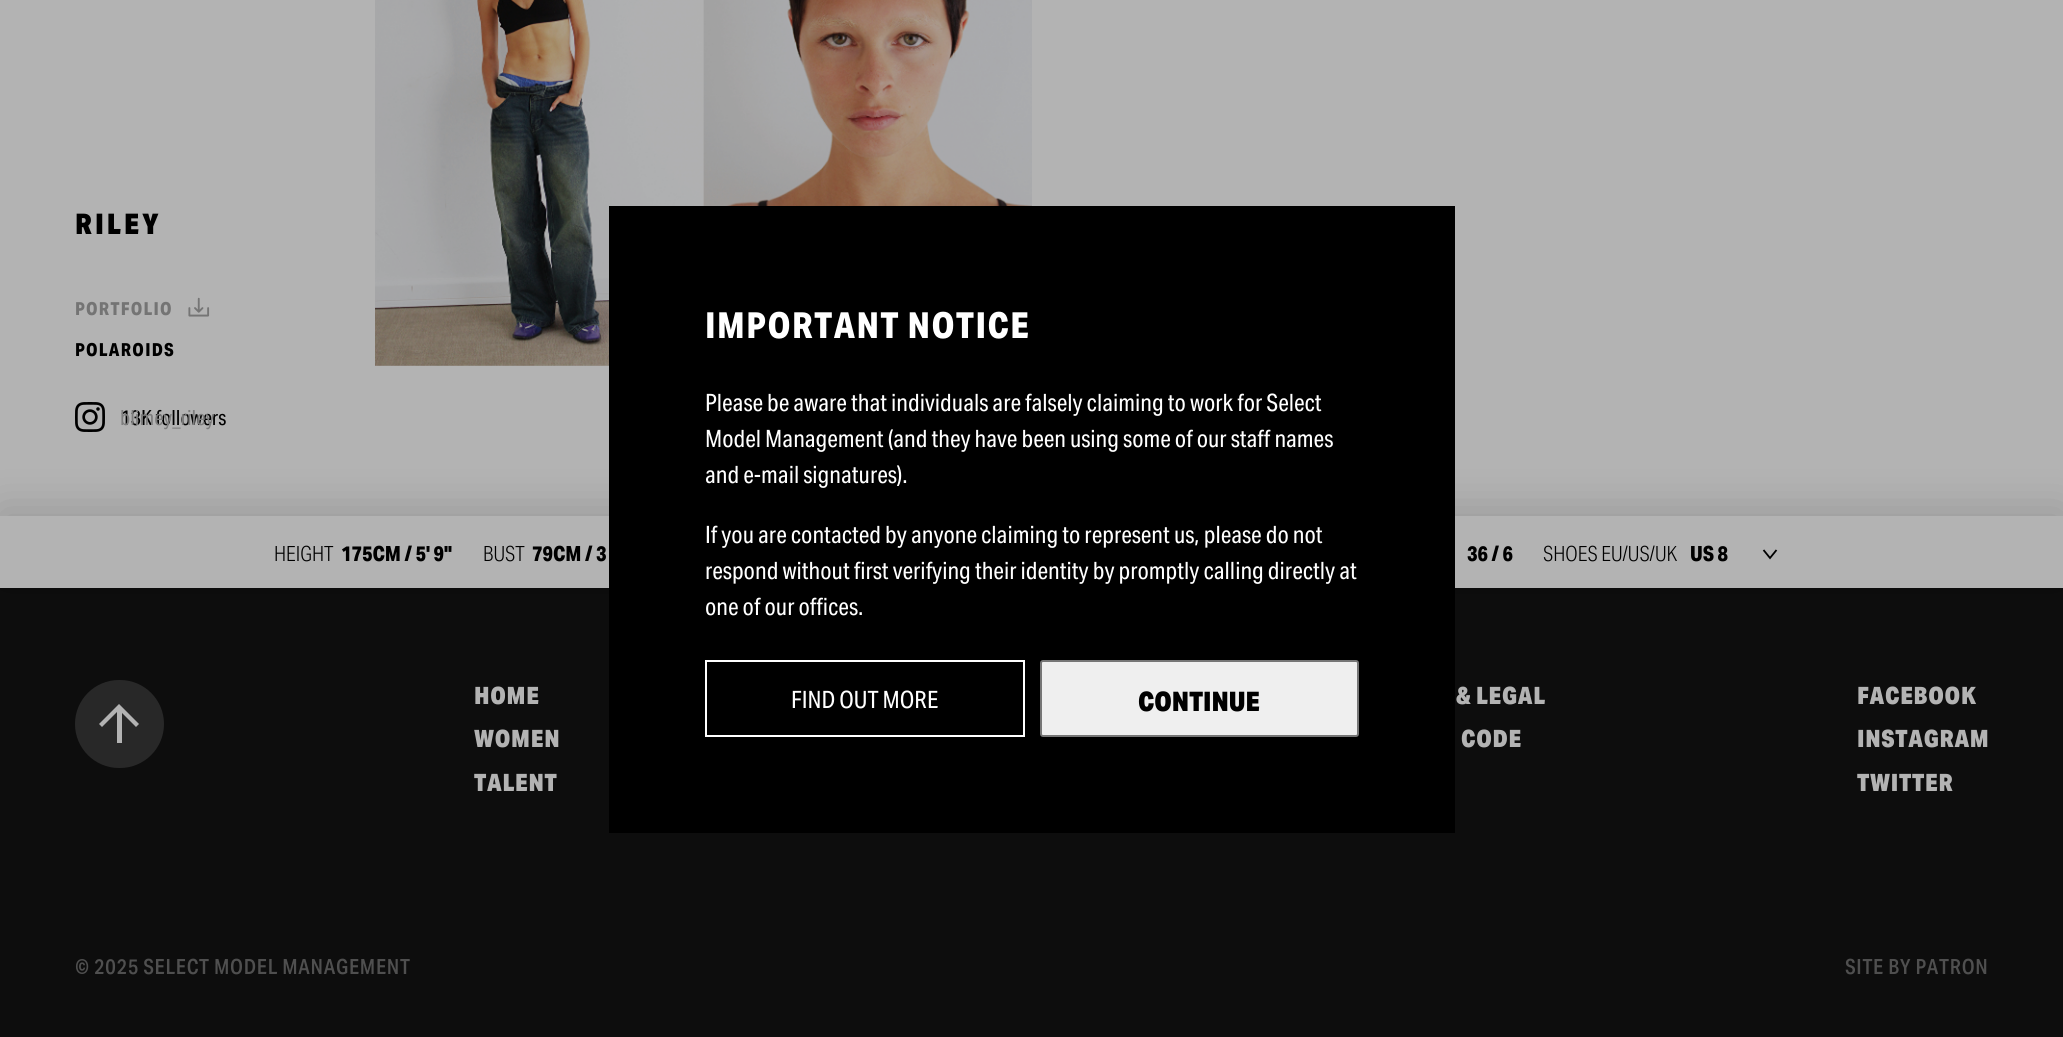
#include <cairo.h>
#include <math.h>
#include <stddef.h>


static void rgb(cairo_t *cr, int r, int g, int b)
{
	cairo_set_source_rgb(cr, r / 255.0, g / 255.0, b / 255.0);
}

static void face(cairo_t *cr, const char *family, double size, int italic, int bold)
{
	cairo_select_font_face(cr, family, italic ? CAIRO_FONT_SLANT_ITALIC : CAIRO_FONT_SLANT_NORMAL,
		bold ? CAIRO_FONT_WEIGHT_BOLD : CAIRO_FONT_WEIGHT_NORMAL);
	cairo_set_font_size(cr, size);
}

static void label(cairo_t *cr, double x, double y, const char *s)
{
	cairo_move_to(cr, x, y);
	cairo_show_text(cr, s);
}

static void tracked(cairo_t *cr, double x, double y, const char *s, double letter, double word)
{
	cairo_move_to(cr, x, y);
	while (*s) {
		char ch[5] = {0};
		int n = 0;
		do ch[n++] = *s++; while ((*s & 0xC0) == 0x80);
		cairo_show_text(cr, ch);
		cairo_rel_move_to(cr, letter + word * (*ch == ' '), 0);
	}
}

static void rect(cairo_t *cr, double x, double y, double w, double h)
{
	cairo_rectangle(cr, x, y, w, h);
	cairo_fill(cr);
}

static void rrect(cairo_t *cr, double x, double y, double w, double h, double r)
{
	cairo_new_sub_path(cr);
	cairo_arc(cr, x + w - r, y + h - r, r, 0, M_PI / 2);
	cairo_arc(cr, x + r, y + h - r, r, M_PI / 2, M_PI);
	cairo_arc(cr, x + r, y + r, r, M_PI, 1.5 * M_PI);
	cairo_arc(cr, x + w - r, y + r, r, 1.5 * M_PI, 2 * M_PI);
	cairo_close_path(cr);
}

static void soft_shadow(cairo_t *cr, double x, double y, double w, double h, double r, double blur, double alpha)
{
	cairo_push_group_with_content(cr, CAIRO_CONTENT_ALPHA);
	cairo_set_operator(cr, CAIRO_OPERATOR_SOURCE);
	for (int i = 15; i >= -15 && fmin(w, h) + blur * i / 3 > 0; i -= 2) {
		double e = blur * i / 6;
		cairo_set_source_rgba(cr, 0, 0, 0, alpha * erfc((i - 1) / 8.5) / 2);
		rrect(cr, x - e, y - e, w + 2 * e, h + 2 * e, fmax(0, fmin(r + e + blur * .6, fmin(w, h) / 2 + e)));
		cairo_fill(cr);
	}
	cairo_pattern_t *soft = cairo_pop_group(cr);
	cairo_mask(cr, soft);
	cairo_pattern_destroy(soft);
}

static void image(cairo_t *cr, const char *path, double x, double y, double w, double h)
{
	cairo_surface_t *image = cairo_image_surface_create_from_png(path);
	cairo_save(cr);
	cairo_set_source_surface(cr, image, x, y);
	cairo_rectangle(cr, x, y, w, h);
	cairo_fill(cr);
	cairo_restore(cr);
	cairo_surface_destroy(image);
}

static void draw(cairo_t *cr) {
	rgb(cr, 179, 179, 179);
	cairo_paint(cr);
	face(cr, "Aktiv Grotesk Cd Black", 28.5, 0, 0);
	rgb(cr, 0, 0, 0);
	tracked(cr, 75, 234, "RILEY", 3, 0);
	face(cr, "Aktiv Grotesk Cd", 18, 0, 1);
	rgb(cr, 116, 116, 116);
	tracked(cr, 75, 315, "PORTFOLIO", 1.25, 0);
	image(cr, "image0.png", 188, 297, 22, 20);
	rgb(cr, 0, 0, 0);
	tracked(cr, 75, 356, "POLAROIDS", 1.25, 0);
	image(cr, "image1.png", 75, 402, 30, 30);
	face(cr, "Aktiv Grotesk Cd", 21, 0, 0);
	label(cr, 120, 425, "13K followers");
	rgb(cr, 125, 125, 125);
	label(cr, 120, 425, "blimey_riley");
	rgb(cr, 172, 172, 172);
	rect(cr, 375, 0, 329, 366);
	image(cr, "image2.png", 375, 0, 329, 366);
	image(cr, "image3.png", 703, 0, 329, 206);
	rgb(cr, 13, 13, 13);
	rect(cr, 0, 588, 2063, 449);
	cairo_save(cr);
	cairo_set_fill_rule(cr, CAIRO_FILL_RULE_EVEN_ODD);
	cairo_new_path(cr);
	cairo_move_to(cr, 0, 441);
	cairo_line_to(cr, 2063, 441);
	cairo_line_to(cr, 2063, 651);
	cairo_line_to(cr, 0, 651);
	cairo_close_path(cr);
	cairo_move_to(cr, 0, 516);
	cairo_line_to(cr, 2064, 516);
	cairo_line_to(cr, 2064, 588);
	cairo_line_to(cr, 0, 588);
	cairo_close_path(cr);
	cairo_clip(cr);
	rgb(cr, 0, 0, 0);
	soft_shadow(cr, 0, 510, 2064, 72, 0, 22.5, 0.15);
	cairo_restore(cr);
	face(cr, "Aktiv Grotesk Cd Light", 21, 0, 0);
	rgb(cr, 0, 0, 0);
	label(cr, 274, 561, "HEIGHT");
	face(cr, "Aktiv Grotesk Cd", 21, 0, 1);
	label(cr, 341, 561, "175CM / 5' 9\"");
	face(cr, "Aktiv Grotesk Cd Light", 21, 0, 0);
	label(cr, 483, 561, "BUST");
	face(cr, "Aktiv Grotesk Cd", 21, 0, 1);
	label(cr, 532, 561, "79CM / 3");
	label(cr, 1467, 561, "36 / 6");
	face(cr, "Aktiv Grotesk Cd Light", 21, 0, 0);
	label(cr, 1543, 561, "SHOES EU/US/UK");
	face(cr, "Aktiv Grotesk Cd", 21, 0, 1);
	label(cr, 1690, 561, "US 8");
	cairo_new_path(cr);
	cairo_move_to(cr, 1763.5, 550);
	cairo_line_to(cr, 1770, 558);
	cairo_line_to(cr, 1776.5, 550);
	cairo_set_line_width(cr, 1.8);
	cairo_stroke(cr);
	rgb(cr, 40, 40, 40);
	rrect(cr, 75, 680, 89, 88, 44);
	cairo_fill(cr);
	rgb(cr, 179, 179, 179);
	cairo_set_fill_rule(cr, CAIRO_FILL_RULE_EVEN_ODD);
	cairo_new_path(cr);
	cairo_move_to(cr, 117, 712);
	cairo_line_to(cr, 102, 727);
	cairo_line_to(cr, 99, 724);
	cairo_line_to(cr, 119, 704);
	cairo_line_to(cr, 139, 724);
	cairo_line_to(cr, 136, 727);
	cairo_line_to(cr, 122, 713);
	cairo_line_to(cr, 122, 743);
	cairo_line_to(cr, 117, 743);
	cairo_close_path(cr);
	cairo_fill(cr);
	face(cr, "Aktiv Grotesk Cd Black", 24, 0, 0);
	tracked(cr, 474, 704, "HOME", 0.7, 0);
	tracked(cr, 474, 747, "WOMEN", 0.7, 0);
	tracked(cr, 474, 791, "TALENT", 0.7, 0);
	tracked(cr, 1456, 704, "& LEGAL", 0.7, 0);
	tracked(cr, 1461, 747, "CODE", 0.7, 0);
	tracked(cr, 1857, 704, "FACEBOOK", 0.7, 0);
	tracked(cr, 1857, 747, "INSTAGRAM", 0.7, 0);
	tracked(cr, 1857, 791, "TWITTER", 0.7, 0);
	face(cr, "Aktiv Grotesk Cd Medium", 21, 0, 0);
	rgb(cr, 79, 79, 79);
	tracked(cr, 75, 974, "© 2025 SELECT MODEL MANAGEMENT", 0.7, 0);
	tracked(cr, 1845, 974, "SITE BY PATRON", 0.7, 0);
	rgb(cr, 0, 0, 0);
	rect(cr, 609, 206, 846, 627);
	face(cr, "Aktiv Grotesk Cd", 36, 0, 1);
	rgb(cr, 255, 255, 255);
	tracked(cr, 705, 338, "IMPORTANT NOTICE", 1.5, 0);
	face(cr, "Aktiv Grotesk Cd", 24, 0, 0);
	label(cr, 705, 411, "Please be aware that individuals are falsely claiming to work for Select");
	label(cr, 705, 447, "Model Management (and they have been using some of our staff names");
	label(cr, 705, 483, "and e-mail signatures).");
	label(cr, 705, 543, "If you are contacted by anyone claiming to represent us, please do not");
	label(cr, 705, 579, "respond without first verifying their identity by promptly calling directly at");
	label(cr, 705, 615, "one of our offices.");
	cairo_rectangle(cr, 706, 661, 318, 75);
	cairo_set_line_width(cr, 2);
	cairo_stroke(cr);
	label(cr, 791, 708, "FIND OUT MORE");
	rgb(cr, 239, 239, 239);
	rrect(cr, 1041, 661, 317, 75, 2);
	cairo_fill_preserve(cr);
	rgb(cr, 118, 118, 118);
	cairo_stroke(cr);
	face(cr, "Aktiv Grotesk Cd Black", 27, 0, 0);
	rgb(cr, 0, 0, 0);
	label(cr, 1138, 711, "CONTINUE");
}

int main(void) {
	cairo_surface_t *surface = cairo_image_surface_create(CAIRO_FORMAT_RGB24, 2063, 1037);
	cairo_t *cr = cairo_create(surface);
	cairo_font_options_t *options = cairo_font_options_create();
	cairo_font_options_set_hint_metrics(options, CAIRO_HINT_METRICS_OFF);
	cairo_font_options_set_hint_style(options, CAIRO_HINT_STYLE_NONE);
	cairo_set_font_options(cr, options);
	cairo_set_miter_limit(cr, 4);
	draw(cr);
	cairo_surface_write_to_png(surface, "render.png");
	cairo_font_options_destroy(options);
	cairo_destroy(cr);
	cairo_surface_destroy(surface);
	return 0;
}
